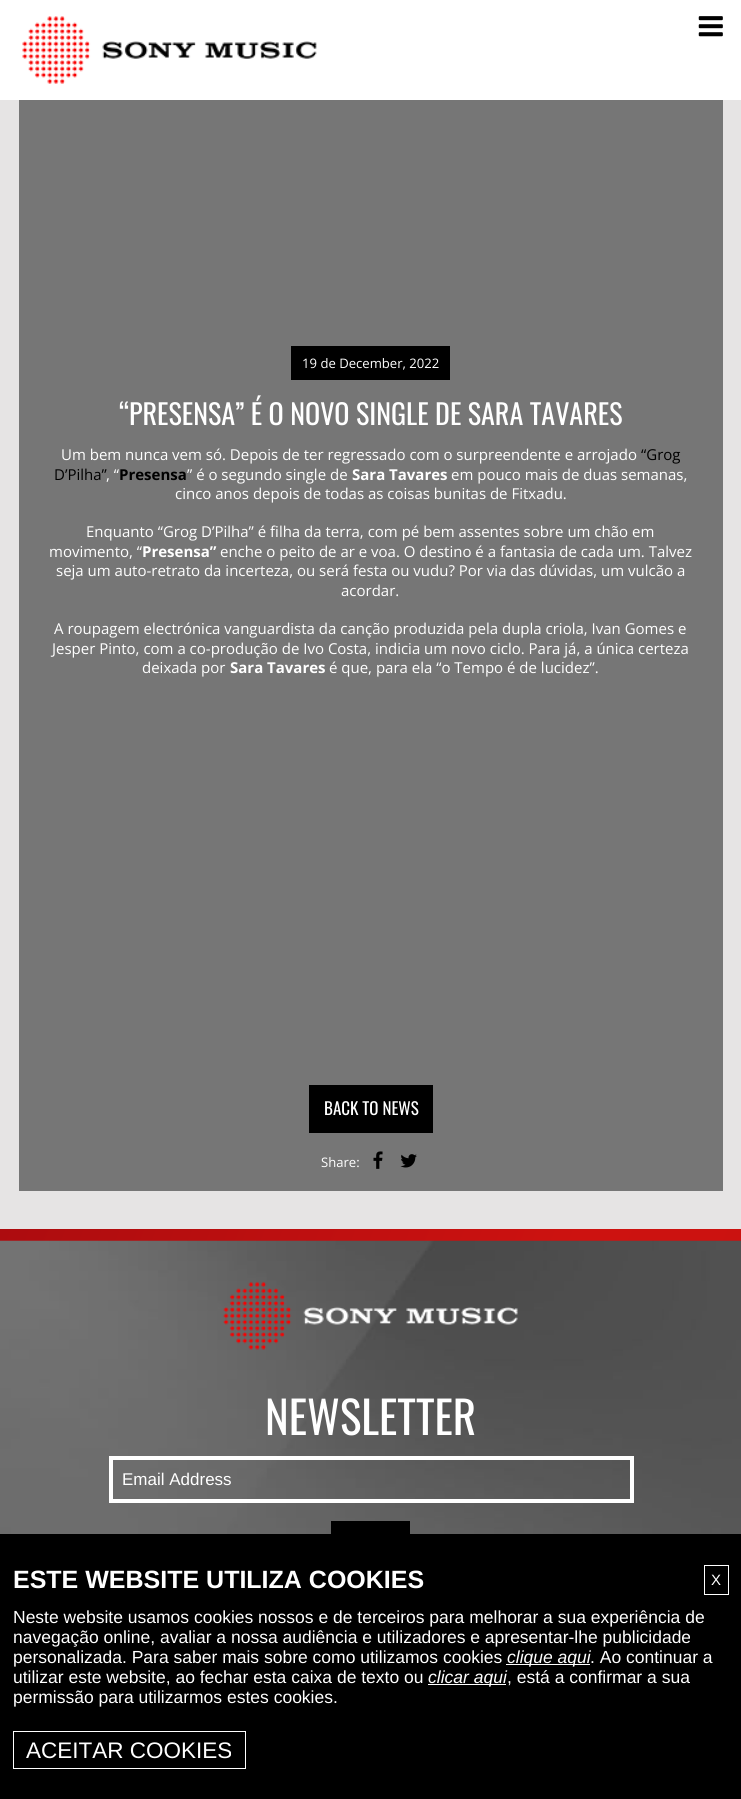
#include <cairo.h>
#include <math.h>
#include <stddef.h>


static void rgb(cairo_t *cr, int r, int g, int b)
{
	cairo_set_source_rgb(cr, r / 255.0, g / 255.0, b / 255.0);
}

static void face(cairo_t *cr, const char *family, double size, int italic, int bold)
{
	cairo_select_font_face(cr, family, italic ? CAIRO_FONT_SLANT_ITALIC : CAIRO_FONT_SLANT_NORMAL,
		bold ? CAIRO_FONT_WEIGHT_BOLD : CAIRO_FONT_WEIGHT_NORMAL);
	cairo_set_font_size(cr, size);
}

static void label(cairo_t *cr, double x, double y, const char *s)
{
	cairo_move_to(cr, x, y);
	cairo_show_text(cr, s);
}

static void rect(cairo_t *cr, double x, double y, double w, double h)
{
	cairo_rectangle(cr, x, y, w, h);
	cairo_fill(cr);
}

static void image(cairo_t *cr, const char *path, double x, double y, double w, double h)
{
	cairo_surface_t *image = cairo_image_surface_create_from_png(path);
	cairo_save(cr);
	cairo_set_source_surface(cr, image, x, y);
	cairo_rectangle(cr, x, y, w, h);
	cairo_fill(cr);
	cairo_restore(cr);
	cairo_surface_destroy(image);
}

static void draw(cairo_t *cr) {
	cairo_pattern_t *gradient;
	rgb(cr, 230, 228, 228);
	cairo_paint(cr);
	rgb(cr, 255, 255, 255);
	rect(cr, 0, 0, 741, 100);
	image(cr, "image0.png", 22, 16, 295, 68);
	image(cr, "image1.png", 698, 16, 25, 21);
	rgb(cr, 118, 118, 118);
	rect(cr, 19, 100, 704, 1091);
	rgb(cr, 0, 0, 0);
	rect(cr, 291, 346, 159, 34);
	face(cr, "Open Sans", 13.1, 0, 0);
	rgb(cr, 255, 255, 255);
	label(cr, 302, 368, "19 de December, 2022");
	face(cr, "Oswald", 28.1, 0, 0);
	label(cr, 119, 425, "“PRESENSA” É O NOVO SINGLE DE SARA TAVARES");
	face(cr, "Open Sans", 15, 0, 0);
	label(cr, 61, 460, "Um bem nunca vem só. Depois de ter regressado com o surpreendente e arrojado");
	rgb(cr, 0, 0, 0);
	label(cr, 641, 460, "“Grog");
	label(cr, 54, 480, "D’Pilha”");
	rgb(cr, 255, 255, 255);
	label(cr, 106, 480, ", “");
	face(cr, "Open Sans", 15, 0, 1);
	rgb(cr, 0, 0, 0);
	label(cr, 119, 480, "Presensa");
	face(cr, "Open Sans", 15, 0, 0);
	rgb(cr, 255, 255, 255);
	label(cr, 187, 480, "” é o segundo single de");
	face(cr, "Open Sans", 15, 0, 1);
	label(cr, 352, 480, "Sara Tavares");
	face(cr, "Open Sans", 15, 0, 0);
	label(cr, 451, 480, "em pouco mais de duas semanas,");
	label(cr, 175, 499, "cinco anos depois de todas as coisas bunitas de Fitxadu.");
	label(cr, 86, 537, "Enquanto “Grog D’Pilha” é filha da terra, com pé bem assentes sobre um chão em");
	label(cr, 49, 557, "movimento, “");
	face(cr, "Open Sans", 15, 0, 1);
	label(cr, 142, 557, "Presensa”");
	face(cr, "Open Sans", 15, 0, 0);
	label(cr, 220, 557, "enche o peito de ar e voa. O destino é a fantasia de cada um. Talvez");
	label(cr, 56, 576, "seja um auto-retrato da incerteza, ou será festa ou vudu? Por via das dúvidas, um vulcão a");
	label(cr, 341, 596, "acordar.");
	label(cr, 54, 634, "A roupagem electrónica vanguardista da canção produzida pela dupla criola, Ivan Gomes e");
	label(cr, 52, 654, "Jesper Pinto, com a co-produção de Ivo Costa, indicia um novo ciclo. Para já, a única certeza");
	label(cr, 142, 673, "deixada por");
	face(cr, "Open Sans", 15, 0, 1);
	label(cr, 230, 673, "Sara Tavares");
	face(cr, "Open Sans", 15, 0, 0);
	label(cr, 329, 673, "é que, para ela “o Tempo é de lucidez”.");
	rgb(cr, 0, 0, 0);
	rect(cr, 309, 1085, 124, 48);
	face(cr, "Oswald", 17, 0, 0);
	rgb(cr, 255, 255, 255);
	label(cr, 324, 1115, "BACK TO NEWS");
	face(cr, "Open Sans", 13.1, 0, 0);
	label(cr, 321, 1167, "Share:");
	image(cr, "image2.png", 373, 1151, 10, 18);
	image(cr, "image3.png", 400, 1154, 17, 14);
	gradient = cairo_pattern_create_linear(-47, 1346, 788, 1683);
	cairo_pattern_add_color_stop_rgba(gradient, 0, 0.678, 0.047, 0.059, 1);
	cairo_pattern_add_color_stop_rgba(gradient, 0.6, 0.804, 0.071, 0.063, 1);
	cairo_pattern_add_color_stop_rgba(gradient, 1, 0.788, 0.071, 0.067, 1);
	cairo_set_source(cr, gradient);
	cairo_pattern_destroy(gradient);
	rect(cr, 0, 1229, 741, 12);
	image(cr, "image4.png", 0, 1240, 741, 294);
	image(cr, "image5.png", 223, 1281, 295, 69);
	face(cr, "Oswald", 45, 0, 0);
	rgb(cr, 255, 255, 255);
	label(cr, 265, 1435, "NEWSLETTER");
	cairo_rectangle(cr, 111, 1458, 521, 43);
	cairo_set_line_width(cr, 4);
	cairo_stroke(cr);
	face(cr, "Liberation Sans", 17, 0, 0);
	label(cr, 122, 1485, "Email Address");
	rgb(cr, 0, 0, 0);
	rect(cr, 331, 1521, 79, 13);
	rect(cr, 0, 1534, 741, 265);
	face(cr, "Liberation Sans", 25, 0, 1);
	rgb(cr, 255, 255, 255);
	label(cr, 13, 1588, "ESTE WEBSITE UTILIZA COOKIES");
	cairo_rectangle(cr, 704.5, 1565.5, 24, 29);
	cairo_set_line_width(cr, 1);
	cairo_stroke(cr);
	face(cr, "Liberation Sans", 15, 0, 0);
	label(cr, 711, 1585, "X");
	face(cr, "Liberation Sans", 17.5, 0, 0);
	label(cr, 13, 1623, "Neste website usamos cookies nossos e de terceiros para melhorar a sua experiência de");
	label(cr, 13, 1643, "navegação online, avaliar a nossa audiência e utilizadores e apresentar-lhe publicidade");
	label(cr, 13, 1663, "personalizada. Para saber mais sobre como utilizamos cookies");
	rect(cr, 506, 1664, 84, 1);
	face(cr, "Liberation Sans", 17.5, 1, 0);
	label(cr, 507, 1663, "clique aqui");
	face(cr, "Liberation Sans", 17.5, 0, 0);
	label(cr, 590, 1663, ". Ao continuar a");
	label(cr, 13, 1683, "utilizar este website, ao fechar esta caixa de texto ou");
	rect(cr, 428, 1684, 78, 1);
	face(cr, "Liberation Sans", 17.5, 1, 0);
	label(cr, 428, 1683, "clicar aqui");
	face(cr, "Liberation Sans", 17.5, 0, 0);
	label(cr, 507, 1683, ", está a confirmar a sua");
	label(cr, 13, 1703, "permissão para utilizarmos estes cookies.");
	cairo_rectangle(cr, 13.5, 1731.5, 232, 37);
	cairo_stroke(cr);
	face(cr, "Liberation Sans", 22.5, 0, 0);
	label(cr, 26, 1758, "ACEITAR COOKIES");
}

int main(void) {
	cairo_surface_t *surface = cairo_image_surface_create(CAIRO_FORMAT_RGB24, 741, 1799);
	cairo_t *cr = cairo_create(surface);
	cairo_font_options_t *options = cairo_font_options_create();
	cairo_font_options_set_hint_metrics(options, CAIRO_HINT_METRICS_OFF);
	cairo_font_options_set_hint_style(options, CAIRO_HINT_STYLE_NONE);
	cairo_set_font_options(cr, options);
	cairo_set_miter_limit(cr, 4);
	draw(cr);
	cairo_surface_write_to_png(surface, "render.png");
	cairo_font_options_destroy(options);
	cairo_destroy(cr);
	cairo_surface_destroy(surface);
	return 0;
}
